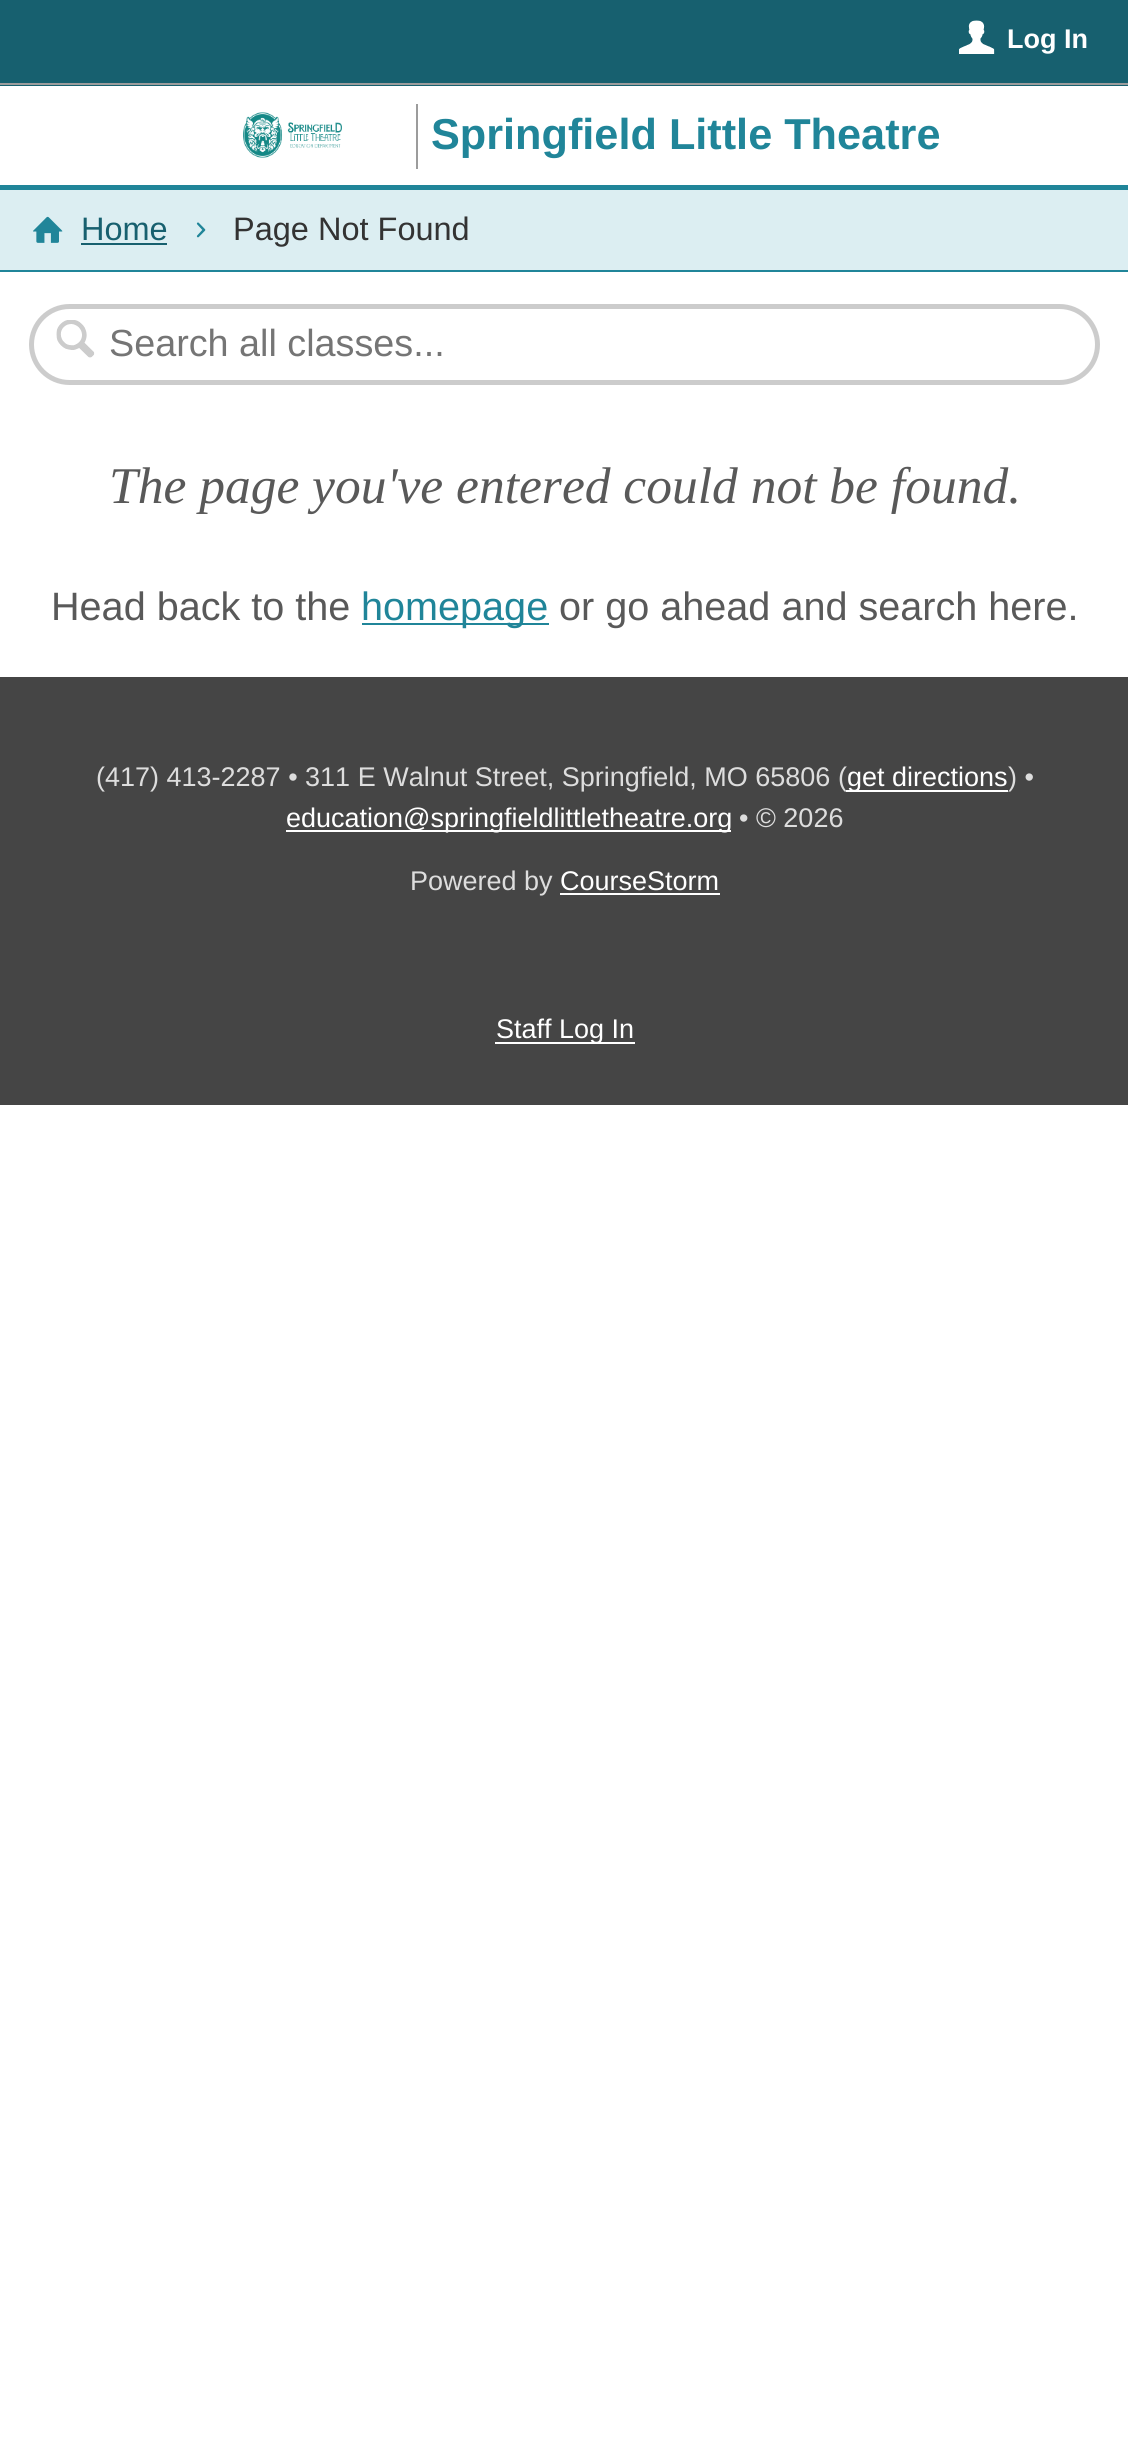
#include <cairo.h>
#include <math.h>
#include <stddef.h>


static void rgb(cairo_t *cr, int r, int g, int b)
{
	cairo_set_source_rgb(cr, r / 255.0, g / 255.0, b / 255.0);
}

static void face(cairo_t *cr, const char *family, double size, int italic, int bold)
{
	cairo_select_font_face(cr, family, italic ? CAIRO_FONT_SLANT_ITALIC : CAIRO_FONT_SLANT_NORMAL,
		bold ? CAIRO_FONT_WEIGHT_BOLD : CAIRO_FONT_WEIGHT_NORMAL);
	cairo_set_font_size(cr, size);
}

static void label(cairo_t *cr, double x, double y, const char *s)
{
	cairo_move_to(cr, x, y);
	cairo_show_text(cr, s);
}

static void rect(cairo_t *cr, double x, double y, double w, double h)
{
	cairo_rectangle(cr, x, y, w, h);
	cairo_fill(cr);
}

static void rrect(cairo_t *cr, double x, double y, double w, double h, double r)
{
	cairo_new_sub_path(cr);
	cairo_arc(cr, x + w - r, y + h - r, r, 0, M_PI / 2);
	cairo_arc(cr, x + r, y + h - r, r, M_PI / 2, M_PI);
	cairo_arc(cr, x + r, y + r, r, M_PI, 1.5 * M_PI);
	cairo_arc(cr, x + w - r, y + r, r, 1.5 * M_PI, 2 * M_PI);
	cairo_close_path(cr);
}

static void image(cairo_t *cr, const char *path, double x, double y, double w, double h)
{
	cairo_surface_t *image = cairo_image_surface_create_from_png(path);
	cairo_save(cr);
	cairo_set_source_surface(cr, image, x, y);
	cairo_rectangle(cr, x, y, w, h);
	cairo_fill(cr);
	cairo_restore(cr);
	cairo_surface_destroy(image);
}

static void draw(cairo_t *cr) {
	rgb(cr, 255, 255, 255);
	cairo_paint(cr);
	rgb(cr, 23, 96, 111);
	rect(cr, 0, 0, 1128, 86);
	rgb(cr, 156, 156, 156);
	rect(cr, 0, 83, 1128, 2);
	image(cr, "image0.png", 959, 20, 36, 34);
	face(cr, "Liberation Sans", 27, 0, 1);
	rgb(cr, 255, 255, 255);
	label(cr, 1007, 48, "Log In");
	image(cr, "image1.png", 243, 112, 99, 46);
	rgb(cr, 156, 156, 156);
	rect(cr, 416, 104, 2, 65);
	face(cr, "Liberation Sans", 43.25, 0, 1);
	rgb(cr, 32, 133, 153);
	label(cr, 431, 149, "Springfield Little Theatre");
	rgb(cr, 220, 238, 242);
	rect(cr, 0, 190, 1128, 80);
	rgb(cr, 32, 133, 153);
	rect(cr, 0, 185, 1128, 5);
	rect(cr, 0, 270, 1128, 2);
	image(cr, "image2.png", 33, 216, 30, 27);
	face(cr, "Liberation Sans", 32.5, 0, 0);
	rgb(cr, 23, 96, 111);
	label(cr, 81, 240, "Home");
	rect(cr, 81, 243, 86, 2);
	image(cr, "image3.png", 196, 222, 10, 16);
	rgb(cr, 51, 51, 51);
	label(cr, 233, 240, "Page Not Found");
	rrect(cr, 31.5, 306.5, 1066, 76, 38);
	rgb(cr, 204, 204, 204);
	cairo_set_line_width(cr, 5);
	cairo_stroke(cr);
	image(cr, "image4.png", 56, 320, 39, 38);
	face(cr, "Liberation Sans", 37.75, 0, 0);
	rgb(cr, 117, 117, 117);
	label(cr, 109, 356, "Search all classes...");
	face(cr, "Liberation Serif", 51.5, 1, 0);
	rgb(cr, 89, 89, 89);
	label(cr, 109, 503, "The page you've entered could not be found.");
	face(cr, "Liberation Sans", 39.6, 0, 0);
	label(cr, 51, 620, "Head back to the");
	rgb(cr, 32, 133, 153);
	rect(cr, 362, 623, 187, 2);
	label(cr, 361, 620, "homepage");
	rgb(cr, 89, 89, 89);
	label(cr, 559, 620, "or go ahead and search here.");
	rgb(cr, 69, 69, 69);
	rect(cr, 0, 677, 1128, 428);
	face(cr, "Liberation Sans", 27, 0, 0);
	rgb(cr, 221, 221, 221);
	label(cr, 96, 786, "(417) 413-2287 • 311 E Walnut Street, Springfield, MO 65806 (");
	rgb(cr, 255, 255, 255);
	rect(cr, 846, 790, 162, 2);
	label(cr, 847, 786, "get directions");
	rgb(cr, 221, 221, 221);
	label(cr, 1008, 786, ") •");
	rgb(cr, 255, 255, 255);
	rect(cr, 286, 830, 445, 2);
	label(cr, 286, 827, "education@springfieldlittletheatre.org");
	rgb(cr, 221, 221, 221);
	label(cr, 739, 827, "• © 2026");
	label(cr, 410, 890, "Powered by");
	rgb(cr, 255, 255, 255);
	label(cr, 560, 890, "CourseStorm");
	rect(cr, 560, 893, 160, 2);
	rect(cr, 495, 1042, 140, 2);
	label(cr, 496, 1038, "Staff Log In");
}

int main(void) {
	cairo_surface_t *surface = cairo_image_surface_create(CAIRO_FORMAT_RGB24, 1128, 2448);
	cairo_t *cr = cairo_create(surface);
	cairo_font_options_t *options = cairo_font_options_create();
	cairo_font_options_set_hint_metrics(options, CAIRO_HINT_METRICS_OFF);
	cairo_font_options_set_hint_style(options, CAIRO_HINT_STYLE_NONE);
	cairo_set_font_options(cr, options);
	cairo_set_miter_limit(cr, 4);
	draw(cr);
	cairo_surface_write_to_png(surface, "render.png");
	cairo_font_options_destroy(options);
	cairo_destroy(cr);
	cairo_surface_destroy(surface);
	return 0;
}
